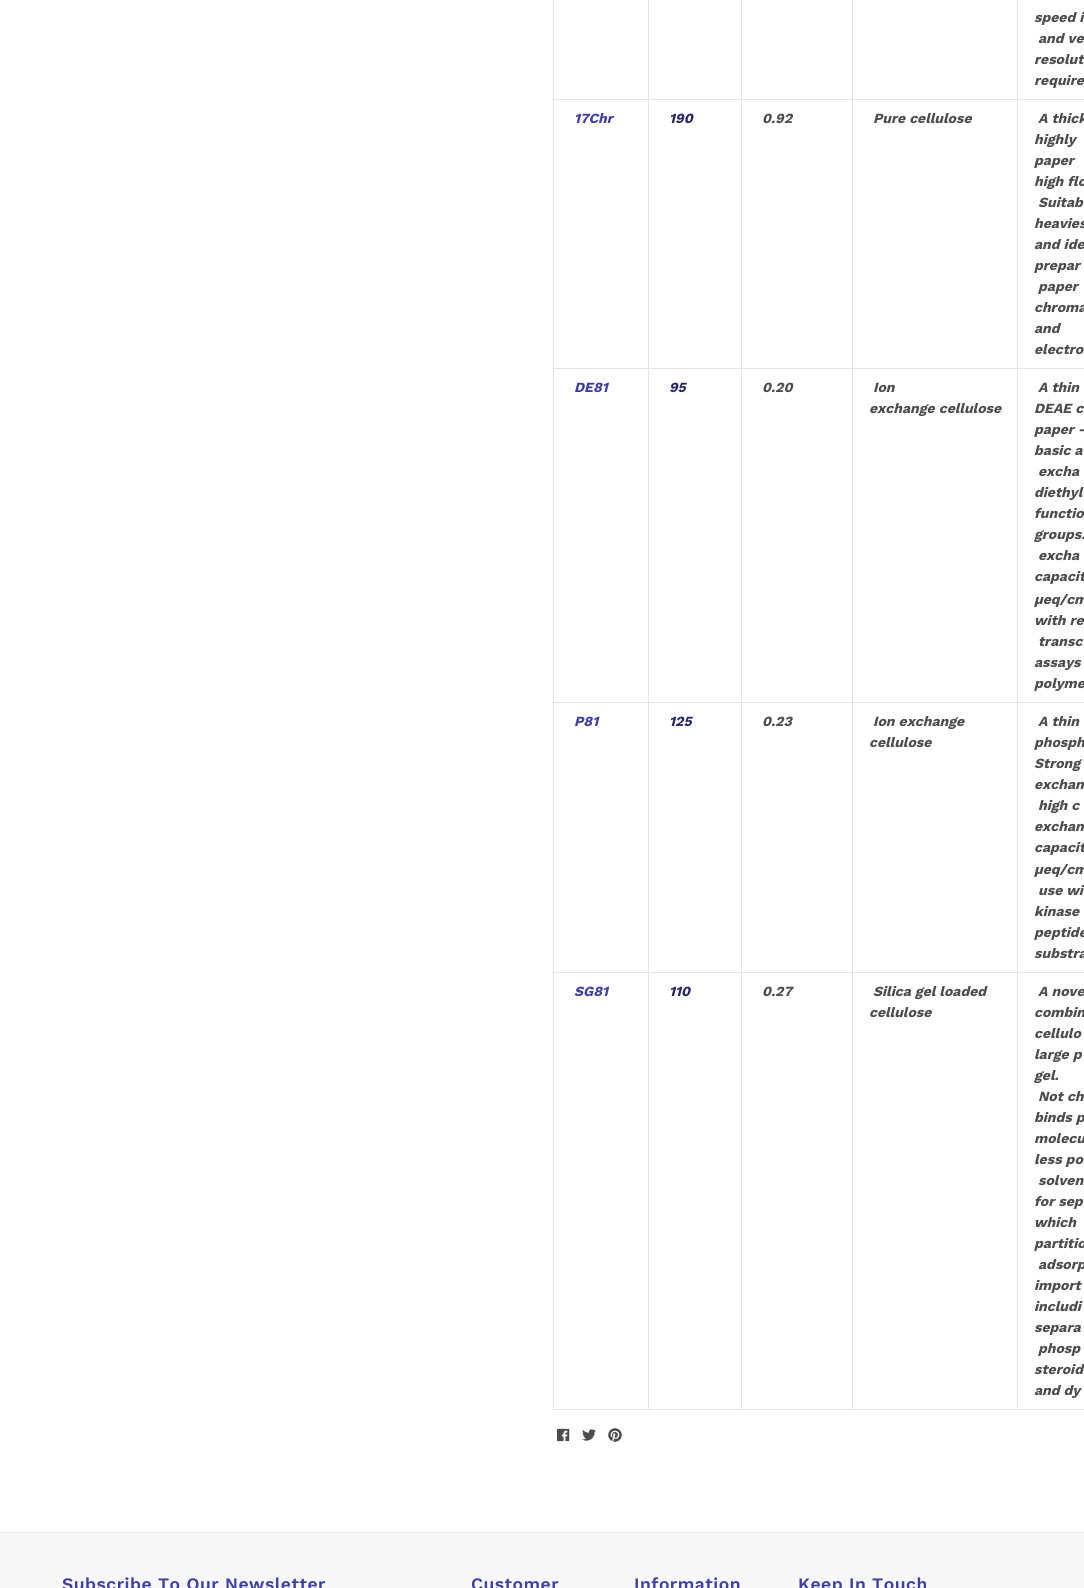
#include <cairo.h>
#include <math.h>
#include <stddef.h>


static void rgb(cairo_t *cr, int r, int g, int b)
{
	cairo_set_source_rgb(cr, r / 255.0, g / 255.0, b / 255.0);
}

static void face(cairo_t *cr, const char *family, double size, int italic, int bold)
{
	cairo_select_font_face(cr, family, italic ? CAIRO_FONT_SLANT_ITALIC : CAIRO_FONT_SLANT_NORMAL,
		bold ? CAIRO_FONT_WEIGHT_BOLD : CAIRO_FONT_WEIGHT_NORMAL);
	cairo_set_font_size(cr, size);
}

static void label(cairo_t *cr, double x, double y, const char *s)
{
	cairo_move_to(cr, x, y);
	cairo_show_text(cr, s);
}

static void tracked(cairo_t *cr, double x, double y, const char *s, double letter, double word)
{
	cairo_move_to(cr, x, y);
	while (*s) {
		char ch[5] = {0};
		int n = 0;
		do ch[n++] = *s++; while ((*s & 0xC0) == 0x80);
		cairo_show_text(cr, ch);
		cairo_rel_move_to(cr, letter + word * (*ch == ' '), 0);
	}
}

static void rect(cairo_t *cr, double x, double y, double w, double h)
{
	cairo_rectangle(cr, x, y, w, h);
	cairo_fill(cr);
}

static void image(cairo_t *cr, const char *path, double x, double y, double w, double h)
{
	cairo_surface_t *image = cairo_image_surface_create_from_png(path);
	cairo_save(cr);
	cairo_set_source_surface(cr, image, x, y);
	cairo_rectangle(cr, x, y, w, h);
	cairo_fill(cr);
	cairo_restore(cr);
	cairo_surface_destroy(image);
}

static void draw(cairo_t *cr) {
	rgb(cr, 255, 255, 255);
	cairo_paint(cr);
	rgb(cr, 228, 228, 228);
	rect(cr, 1017, 99, 67, 1);
	rect(cr, 1017, 368, 67, 1);
	rect(cr, 1017, 702, 67, 1);
	rect(cr, 1017, 972, 67, 1);
	rect(cr, 1017, 1409, 67, 1);
	rect(cr, 1017, 972, 1, 438);
	rect(cr, 852, 972, 166, 1);
	rect(cr, 1017, 702, 1, 271);
	rect(cr, 852, 702, 166, 1);
	rect(cr, 1017, 368, 1, 335);
	rect(cr, 852, 368, 166, 1);
	rect(cr, 1017, 99, 1, 270);
	rect(cr, 852, 99, 166, 1);
	rect(cr, 852, 1409, 166, 1);
	rect(cr, 852, 972, 1, 438);
	rect(cr, 741, 972, 112, 1);
	rect(cr, 852, 702, 1, 271);
	rect(cr, 741, 702, 112, 1);
	rect(cr, 852, 368, 1, 335);
	rect(cr, 741, 368, 112, 1);
	rect(cr, 852, 99, 1, 270);
	rect(cr, 741, 99, 112, 1);
	rect(cr, 741, 1409, 112, 1);
	rect(cr, 741, 972, 1, 438);
	rect(cr, 648, 972, 94, 1);
	rect(cr, 741, 702, 1, 271);
	rect(cr, 648, 702, 94, 1);
	rect(cr, 741, 368, 1, 335);
	rect(cr, 648, 368, 94, 1);
	rect(cr, 741, 99, 1, 270);
	rect(cr, 648, 99, 94, 1);
	rect(cr, 648, 1409, 94, 1);
	rect(cr, 648, 972, 1, 438);
	rect(cr, 553, 972, 96, 1);
	rect(cr, 648, 702, 1, 271);
	rect(cr, 553, 702, 96, 1);
	rect(cr, 648, 368, 1, 335);
	rect(cr, 553, 368, 96, 1);
	rect(cr, 648, 99, 1, 270);
	rect(cr, 553, 99, 96, 1);
	rect(cr, 648, 0, 1, 100);
	rect(cr, 741, 0, 1, 100);
	rect(cr, 852, 0, 1, 100);
	rect(cr, 1017, 0, 1, 100);
	face(cr, "Work Sans", 14, 1, 1);
	rgb(cr, 77, 77, 77);
	label(cr, 1034, 22, "speed i");
	label(cr, 1038, 43, "and ve");
	label(cr, 1034, 64, "resolut");
	label(cr, 1034, 85, "require");
	rgb(cr, 228, 228, 228);
	rect(cr, 553, 1409, 96, 1);
	rect(cr, 553, 972, 1, 438);
	rect(cr, 553, 702, 1, 271);
	rect(cr, 553, 368, 1, 335);
	rect(cr, 553, 0, 1, 369);
	rgb(cr, 64, 64, 162);
	label(cr, 574, 123, "17Chr");
	rgb(cr, 40, 40, 100);
	label(cr, 669, 123, "190");
	rgb(cr, 77, 77, 77);
	label(cr, 762, 123, "0.92");
	label(cr, 873, 123, "Pure cellulose");
	label(cr, 1038, 123, "A thick");
	label(cr, 1034, 144, "highly");
	label(cr, 1034, 165, "paper");
	label(cr, 1034, 186, "high flo");
	label(cr, 1038, 207, "Suitab");
	label(cr, 1034, 228, "heavies");
	label(cr, 1034, 249, "and ide");
	label(cr, 1034, 270, "prepar");
	label(cr, 1038, 291, "paper");
	label(cr, 1034, 312, "chroma");
	label(cr, 1034, 333, "and");
	label(cr, 1034, 354, "electro");
	rgb(cr, 64, 64, 162);
	label(cr, 574, 392, "DE81");
	rgb(cr, 40, 40, 100);
	label(cr, 669, 392, "95");
	rgb(cr, 77, 77, 77);
	label(cr, 762, 392, "0.20");
	label(cr, 873, 392, "Ion");
	label(cr, 869, 413, "exchange cellulose");
	label(cr, 1038, 392, "A thin");
	label(cr, 1034, 413, "DEAE c");
	label(cr, 1034, 434, "paper –");
	label(cr, 1034, 455, "basic a");
	label(cr, 1038, 476, "excha");
	label(cr, 1034, 497, "diethyl");
	label(cr, 1034, 518, "functio");
	label(cr, 1034, 539, "groups.");
	label(cr, 1038, 560, "excha");
	label(cr, 1034, 581, "capacit");
	label(cr, 1034, 604, "µeq/cm");
	label(cr, 1034, 625, "with re");
	label(cr, 1038, 646, "transc");
	label(cr, 1034, 667, "assays");
	label(cr, 1034, 688, "polyme");
	rgb(cr, 64, 64, 162);
	label(cr, 574, 726, "P81");
	rgb(cr, 40, 40, 100);
	label(cr, 669, 726, "125");
	rgb(cr, 77, 77, 77);
	label(cr, 762, 726, "0.23");
	label(cr, 873, 726, "Ion exchange");
	label(cr, 869, 747, "cellulose");
	label(cr, 1038, 726, "A thin");
	label(cr, 1034, 747, "phosph");
	label(cr, 1034, 768, "Strong");
	label(cr, 1034, 789, "exchan");
	label(cr, 1038, 810, "high c");
	label(cr, 1034, 831, "exchan");
	label(cr, 1034, 852, "capacit");
	label(cr, 1034, 874, "µeq/cm");
	label(cr, 1038, 895, "use wi");
	label(cr, 1034, 916, "kinase");
	label(cr, 1034, 937, "peptide");
	label(cr, 1034, 958, "substra");
	rgb(cr, 64, 64, 162);
	label(cr, 574, 996, "SG81");
	rgb(cr, 40, 40, 100);
	label(cr, 669, 996, "110");
	rgb(cr, 77, 77, 77);
	label(cr, 762, 996, "0.27");
	label(cr, 873, 996, "Silica gel loaded");
	label(cr, 869, 1017, "cellulose");
	label(cr, 1038, 996, "A nove");
	label(cr, 1034, 1017, "combin");
	label(cr, 1034, 1038, "cellulo");
	label(cr, 1034, 1059, "large p");
	label(cr, 1034, 1080, "gel.");
	label(cr, 1038, 1101, "Not ch");
	label(cr, 1034, 1122, "binds p");
	label(cr, 1034, 1143, "molecu");
	label(cr, 1034, 1164, "less po");
	label(cr, 1038, 1185, "solven");
	label(cr, 1034, 1206, "for sep");
	label(cr, 1034, 1227, "which");
	label(cr, 1034, 1248, "partitio");
	label(cr, 1038, 1269, "adsorp");
	label(cr, 1034, 1290, "import");
	label(cr, 1034, 1311, "includi");
	label(cr, 1034, 1332, "separa");
	label(cr, 1038, 1353, "phosp");
	label(cr, 1034, 1374, "steroid");
	label(cr, 1034, 1395, "and dy");
	image(cr, "image0.png", 557, 1428, 13, 14);
	image(cr, "image1.png", 582, 1429, 14, 12);
	image(cr, "image2.png", 608, 1428, 14, 14);
	rgb(cr, 247, 247, 247);
	rect(cr, 0, 1533, 1084, 55);
	rgb(cr, 228, 228, 228);
	rect(cr, 0, 1532, 1084, 1);
	face(cr, "Work Sans SemiBold", 17.5, 0, 0);
	rgb(cr, 64, 64, 162);
	tracked(cr, 62, 1590, "Subscribe To Our Newsletter", 0.5, 0);
	tracked(cr, 471, 1590, "Customer", 0.5, 0);
	tracked(cr, 634, 1590, "Information", 0.5, 0);
	tracked(cr, 798, 1590, "Keep In Touch", 0.5, 0);
}

int main(void) {
	cairo_surface_t *surface = cairo_image_surface_create(CAIRO_FORMAT_RGB24, 1084, 1588);
	cairo_t *cr = cairo_create(surface);
	cairo_font_options_t *options = cairo_font_options_create();
	cairo_font_options_set_hint_metrics(options, CAIRO_HINT_METRICS_OFF);
	cairo_font_options_set_hint_style(options, CAIRO_HINT_STYLE_NONE);
	cairo_set_font_options(cr, options);
	cairo_set_miter_limit(cr, 4);
	draw(cr);
	cairo_surface_write_to_png(surface, "render.png");
	cairo_font_options_destroy(options);
	cairo_destroy(cr);
	cairo_surface_destroy(surface);
	return 0;
}
